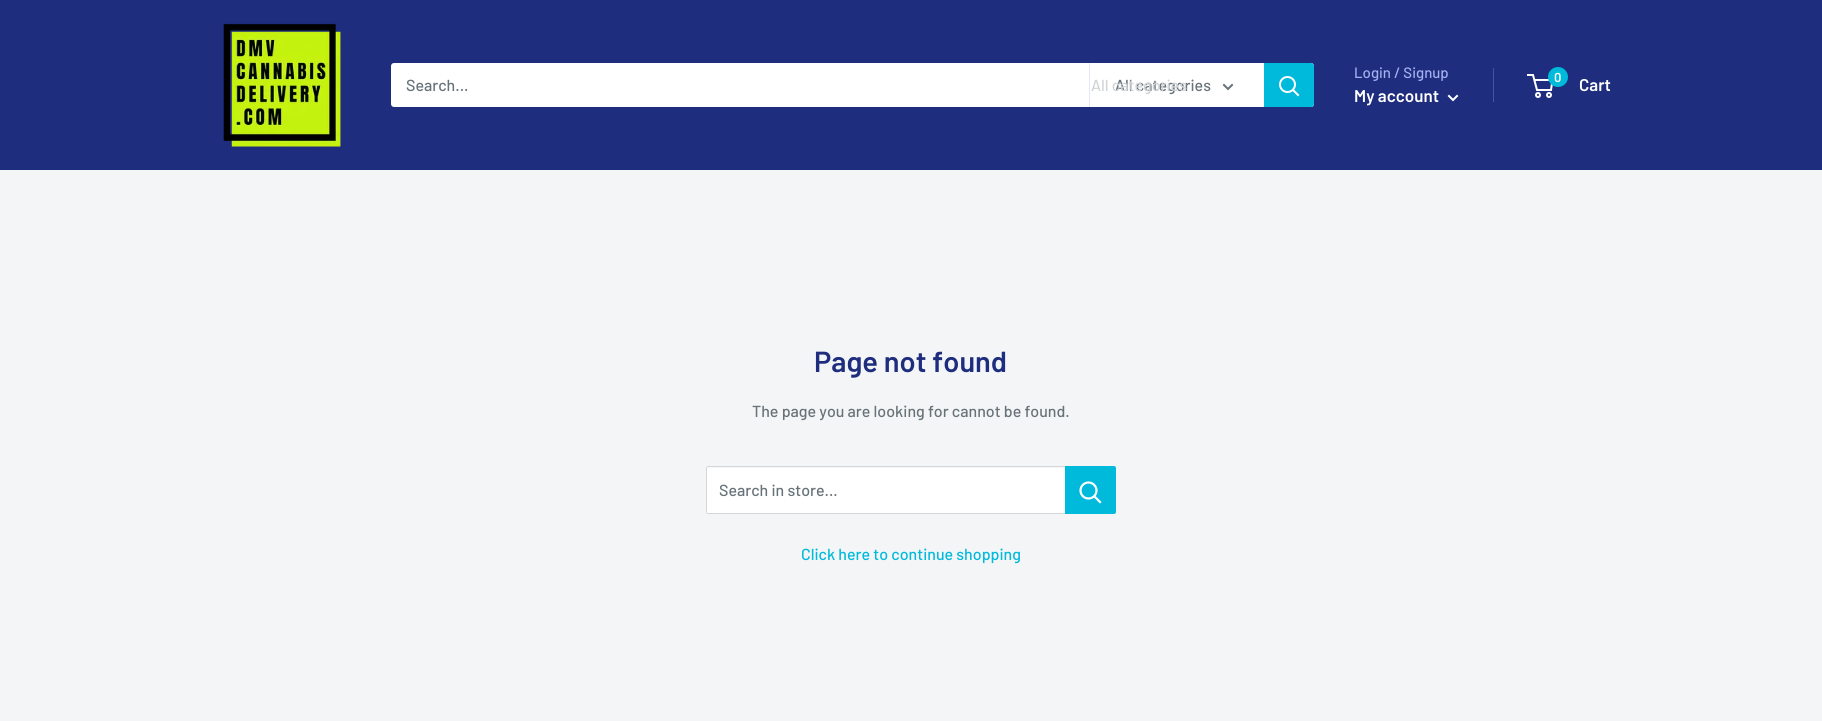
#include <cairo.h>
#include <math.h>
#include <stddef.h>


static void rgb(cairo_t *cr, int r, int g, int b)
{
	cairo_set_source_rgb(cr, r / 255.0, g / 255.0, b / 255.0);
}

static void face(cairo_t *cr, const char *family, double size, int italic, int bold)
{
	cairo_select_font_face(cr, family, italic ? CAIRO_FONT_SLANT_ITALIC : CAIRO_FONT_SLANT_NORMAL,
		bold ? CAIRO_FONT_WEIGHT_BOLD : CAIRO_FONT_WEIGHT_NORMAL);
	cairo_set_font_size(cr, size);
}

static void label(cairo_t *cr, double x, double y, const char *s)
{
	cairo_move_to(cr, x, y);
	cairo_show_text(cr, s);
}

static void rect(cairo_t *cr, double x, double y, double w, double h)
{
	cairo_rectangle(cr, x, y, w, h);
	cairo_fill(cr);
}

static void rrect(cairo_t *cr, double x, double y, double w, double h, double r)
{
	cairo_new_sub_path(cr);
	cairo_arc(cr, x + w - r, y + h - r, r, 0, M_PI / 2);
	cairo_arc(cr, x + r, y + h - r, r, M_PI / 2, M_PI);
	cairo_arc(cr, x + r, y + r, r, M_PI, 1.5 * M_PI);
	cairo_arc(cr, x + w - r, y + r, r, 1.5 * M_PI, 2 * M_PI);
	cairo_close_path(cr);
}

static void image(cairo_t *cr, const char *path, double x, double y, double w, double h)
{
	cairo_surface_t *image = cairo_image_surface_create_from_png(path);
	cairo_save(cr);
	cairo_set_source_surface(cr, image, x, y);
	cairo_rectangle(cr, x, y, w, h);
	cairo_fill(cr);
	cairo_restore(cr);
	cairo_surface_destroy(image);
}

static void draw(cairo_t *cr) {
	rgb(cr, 243, 245, 246);
	cairo_paint(cr);
	rgb(cr, 30, 45, 125);
	rect(cr, 0, 0, 1822, 170);
	image(cr, "image0.png", 223, 23, 118, 124);
	rgb(cr, 255, 255, 255);
	rrect(cr, 391, 63, 923, 44, 3);
	cairo_fill(cr);
	face(cr, "Barlow Medium", 16, 0, 0);
	rgb(cr, 103, 114, 121);
	label(cr, 406, 91, "Search...");
	rgb(cr, 227, 231, 250);
	rect(cr, 1089, 63, 1, 44);
	rgb(cr, 103, 114, 121);
	label(cr, 1115, 91, "All categories");
	rgb(cr, 209, 212, 215);
	label(cr, 1091, 91, "All categories");
	cairo_new_path(cr);
	cairo_move_to(cr, 1232, 85);
	cairo_line_to(cr, 1228, 89);
	cairo_line_to(cr, 1224, 85);
	rgb(cr, 103, 114, 121);
	cairo_set_line_cap(cr, CAIRO_LINE_CAP_SQUARE);
	cairo_stroke(cr);
	rgb(cr, 0, 186, 219);
	cairo_new_path(cr);
	cairo_move_to(cr, 1264, 63);
	cairo_line_to(cr, 1311, 63);
	cairo_curve_to(cr, 1312.5, 63, 1314, 64.5, 1314, 66);
	cairo_line_to(cr, 1314, 104);
	cairo_curve_to(cr, 1314, 105.5, 1312.5, 107, 1311, 107);
	cairo_line_to(cr, 1264, 107);
	cairo_close_path(cr);
	cairo_fill(cr);
	cairo_new_path(cr);
	cairo_move_to(cr, 1298, 95);
	cairo_line_to(cr, 1293, 90);
	rgb(cr, 255, 255, 255);
	cairo_stroke(cr);
	cairo_arc(cr, 1287.5, 84.5, 7.5, 0, 2 * M_PI);
	cairo_set_line_cap(cr, CAIRO_LINE_CAP_BUTT);
	cairo_stroke(cr);
	face(cr, "Barlow Medium", 15, 0, 0);
	rgb(cr, 163, 175, 239);
	label(cr, 1354, 78, "Login / Signup");
	rgb(cr, 70, 84, 159);
	rect(cr, 1493, 68, 1, 34);
	face(cr, "Barlow SemiBold", 17, 0, 0);
	rgb(cr, 255, 255, 255);
	label(cr, 1354, 102, "My account");
	cairo_new_path(cr);
	cairo_move_to(cr, 1457, 96);
	cairo_line_to(cr, 1453, 100);
	cairo_line_to(cr, 1449, 96);
	cairo_set_line_cap(cr, CAIRO_LINE_CAP_SQUARE);
	cairo_stroke(cr);
	cairo_arc(cr, 1538, 95, 2, 0, 2 * M_PI);
	cairo_set_line_cap(cr, CAIRO_LINE_CAP_BUTT);
	cairo_stroke(cr);
	cairo_arc(cr, 1549, 95, 2, 0, 2 * M_PI);
	cairo_stroke(cr);
	cairo_new_path(cr);
	cairo_move_to(cr, 1534.5, 80);
	cairo_line_to(cr, 1552.5, 80);
	cairo_line_to(cr, 1551, 90);
	cairo_line_to(cr, 1537, 90);
	cairo_line_to(cr, 1533, 75);
	cairo_line_to(cr, 1527, 75);
	cairo_stroke(cr);
	rgb(cr, 0, 186, 219);
	cairo_arc(cr, 1558, 77, 10, 0, 2 * M_PI);
	cairo_fill(cr);
	face(cr, "Barlow SemiBold", 13, 0, 0);
	rgb(cr, 255, 255, 255);
	label(cr, 1554, 82, "0");
	face(cr, "Barlow SemiBold", 17, 0, 0);
	label(cr, 1579, 91, "Cart");
	face(cr, "Barlow SemiBold", 29, 0, 0);
	rgb(cr, 30, 45, 125);
	label(cr, 814, 372, "Page not found");
	face(cr, "Barlow Medium", 16, 0, 0);
	rgb(cr, 103, 114, 121);
	label(cr, 752, 417, "The page you are looking for cannot be found.");
	rgb(cr, 255, 255, 255);
	cairo_new_path(cr);
	cairo_move_to(cr, 708, 466);
	cairo_line_to(cr, 1065, 466);
	cairo_line_to(cr, 1065, 514);
	cairo_line_to(cr, 708, 514);
	cairo_curve_to(cr, 707, 514, 706, 513, 706, 512);
	cairo_line_to(cr, 706, 468);
	cairo_curve_to(cr, 706, 467, 707, 466, 708, 466);
	cairo_close_path(cr);
	cairo_fill(cr);
	rgb(cr, 248, 248, 248);
	cairo_new_path(cr);
	cairo_move_to(cr, 708, 468);
	cairo_line_to(cr, 1065, 468);
	cairo_line_to(cr, 1065, 467);
	cairo_line_to(cr, 708, 467);
	cairo_curve_to(cr, 707, 467, 707, 468, 707, 469);
	cairo_curve_to(cr, 707, 468, 707, 468, 708, 468);
	cairo_close_path(cr);
	cairo_fill(cr);
	rgb(cr, 212, 214, 216);
	rect(cr, 707, 466, 358, 1);
	rect(cr, 707, 513, 358, 1);
	rect(cr, 706, 467, 1, 46);
	rgb(cr, 103, 114, 121);
	label(cr, 719, 496, "Search in store...");
	rgb(cr, 0, 186, 219);
	cairo_new_path(cr);
	cairo_move_to(cr, 1065, 466);
	cairo_line_to(cr, 1114, 466);
	cairo_curve_to(cr, 1115, 466, 1116, 467, 1116, 468);
	cairo_line_to(cr, 1116, 512);
	cairo_curve_to(cr, 1116, 513, 1115, 514, 1114, 514);
	cairo_line_to(cr, 1065, 514);
	cairo_close_path(cr);
	cairo_fill(cr);
	cairo_new_path(cr);
	cairo_move_to(cr, 1100, 502);
	cairo_line_to(cr, 1094.5, 496.5);
	rgb(cr, 255, 255, 255);
	cairo_set_line_width(cr, 2.2);
	cairo_set_line_cap(cr, CAIRO_LINE_CAP_SQUARE);
	cairo_stroke(cr);
	cairo_arc(cr, 1088.5, 490.5, 8, 0, 2 * M_PI);
	cairo_set_line_cap(cr, CAIRO_LINE_CAP_BUTT);
	cairo_stroke(cr);
	rgb(cr, 0, 186, 219);
	label(cr, 801, 560, "Click here to continue shopping");
}

int main(void) {
	cairo_surface_t *surface = cairo_image_surface_create(CAIRO_FORMAT_RGB24, 1822, 721);
	cairo_t *cr = cairo_create(surface);
	cairo_font_options_t *options = cairo_font_options_create();
	cairo_font_options_set_hint_metrics(options, CAIRO_HINT_METRICS_OFF);
	cairo_font_options_set_hint_style(options, CAIRO_HINT_STYLE_NONE);
	cairo_set_font_options(cr, options);
	cairo_set_miter_limit(cr, 4);
	draw(cr);
	cairo_surface_write_to_png(surface, "render.png");
	cairo_font_options_destroy(options);
	cairo_destroy(cr);
	cairo_surface_destroy(surface);
	return 0;
}
